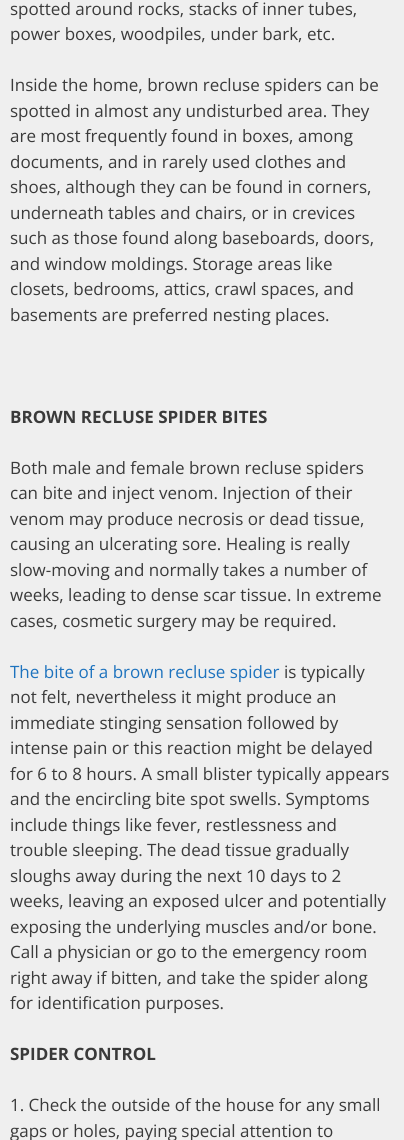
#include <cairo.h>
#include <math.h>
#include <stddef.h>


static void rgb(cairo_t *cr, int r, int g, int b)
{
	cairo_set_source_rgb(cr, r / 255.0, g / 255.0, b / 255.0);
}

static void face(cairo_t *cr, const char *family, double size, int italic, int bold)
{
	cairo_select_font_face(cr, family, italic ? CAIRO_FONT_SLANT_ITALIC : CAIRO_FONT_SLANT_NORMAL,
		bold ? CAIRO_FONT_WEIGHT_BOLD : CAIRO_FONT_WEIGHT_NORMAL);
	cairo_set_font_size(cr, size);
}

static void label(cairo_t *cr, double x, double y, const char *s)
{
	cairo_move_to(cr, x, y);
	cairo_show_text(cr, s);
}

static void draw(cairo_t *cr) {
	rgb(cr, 239, 239, 239);
	cairo_paint(cr);
	face(cr, "Open Sans", 17, 0, 0);
	rgb(cr, 58, 58, 58);
	label(cr, 10, 15, "spotted around rocks, stacks of inner tubes,");
	label(cr, 10, 40, "power boxes, woodpiles, under bark, etc.");
	label(cr, 10, 91, "Inside the home, brown recluse spiders can be");
	label(cr, 10, 117, "spotted in almost any undisturbed area. They");
	label(cr, 10, 142, "are most frequently found in boxes, among");
	label(cr, 10, 168, "documents, and in rarely used clothes and");
	label(cr, 10, 193, "shoes, although they can be found in corners,");
	label(cr, 10, 219, "underneath tables and chairs, or in crevices");
	label(cr, 10, 244, "such as those found along baseboards, doors,");
	label(cr, 10, 270, "and window moldings. Storage areas like");
	label(cr, 10, 295, "closets, bedrooms, attics, crawl spaces, and");
	label(cr, 10, 321, "basements are preferred nesting places.");
	face(cr, "Open Sans", 17, 0, 1);
	label(cr, 10, 423, "BROWN RECLUSE SPIDER BITES");
	face(cr, "Open Sans", 17, 0, 0);
	label(cr, 10, 474, "Both male and female brown recluse spiders");
	label(cr, 10, 499, "can bite and inject venom. Injection of their");
	label(cr, 10, 525, "venom may produce necrosis or dead tissue,");
	label(cr, 10, 550, "causing an ulcerating sore. Healing is really");
	label(cr, 10, 576, "slow-moving and normally takes a number of");
	label(cr, 10, 601, "weeks, leading to dense scar tissue. In extreme");
	label(cr, 10, 627, "cases, cosmetic surgery may be required.");
	rgb(cr, 30, 115, 190);
	label(cr, 10, 678, "The bite of a brown recluse spider");
	rgb(cr, 58, 58, 58);
	label(cr, 284, 678, "is typically");
	label(cr, 10, 703, "not felt, nevertheless it might produce an");
	label(cr, 10, 729, "immediate stinging sensation followed by");
	label(cr, 10, 754, "intense pain or this reaction might be delayed");
	label(cr, 10, 780, "for 6 to 8 hours. A small blister typically appears");
	label(cr, 10, 805, "and the encircling bite spot swells. Symptoms");
	label(cr, 10, 831, "include things like fever, restlessness and");
	label(cr, 10, 856, "trouble sleeping. The dead tissue gradually");
	label(cr, 10, 882, "sloughs away during the next 10 days to 2");
	label(cr, 10, 907, "weeks, leaving an exposed ulcer and potentially");
	label(cr, 10, 933, "exposing the underlying muscles and/or bone.");
	label(cr, 10, 958, "Call a physician or go to the emergency room");
	label(cr, 10, 984, "right away if bitten, and take the spider along");
	label(cr, 10, 1009, "for identification purposes.");
	face(cr, "Open Sans", 17, 0, 1);
	label(cr, 10, 1060, "SPIDER CONTROL");
	face(cr, "Open Sans", 17, 0, 0);
	label(cr, 10, 1111, "1. Check the outside of the house for any small");
	label(cr, 10, 1137, "gaps or holes, paying special attention to");
}

int main(void) {
	cairo_surface_t *surface = cairo_image_surface_create(CAIRO_FORMAT_RGB24, 404, 1140);
	cairo_t *cr = cairo_create(surface);
	cairo_font_options_t *options = cairo_font_options_create();
	cairo_font_options_set_hint_metrics(options, CAIRO_HINT_METRICS_OFF);
	cairo_font_options_set_hint_style(options, CAIRO_HINT_STYLE_NONE);
	cairo_set_font_options(cr, options);
	cairo_set_miter_limit(cr, 4);
	draw(cr);
	cairo_surface_write_to_png(surface, "render.png");
	cairo_font_options_destroy(options);
	cairo_destroy(cr);
	cairo_surface_destroy(surface);
	return 0;
}
